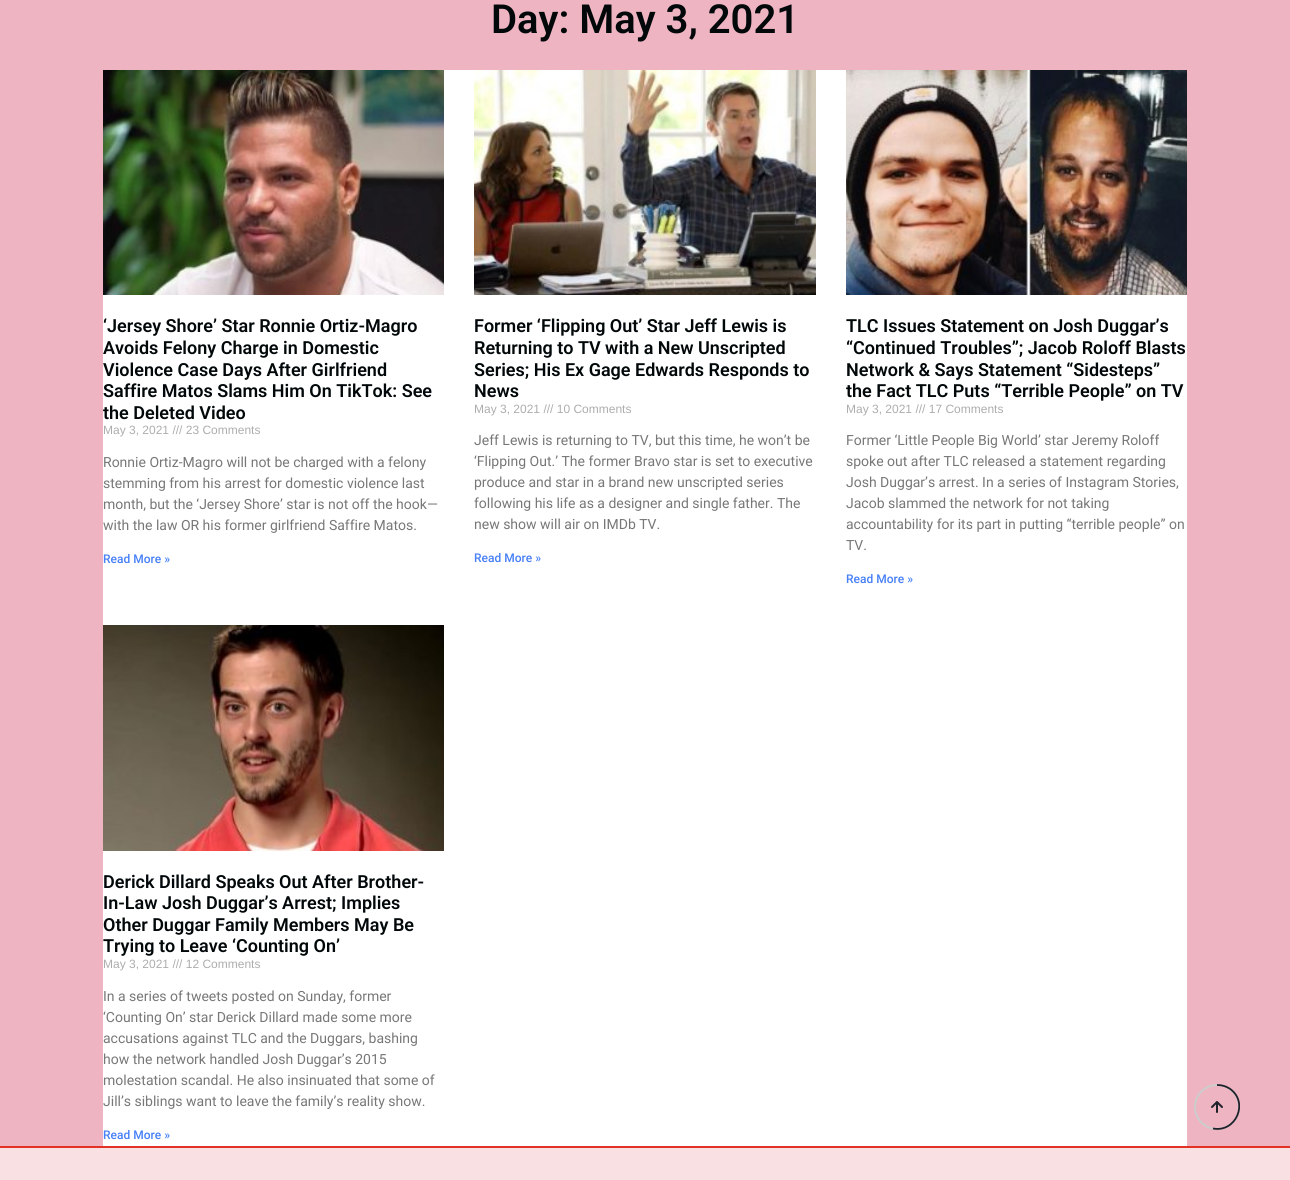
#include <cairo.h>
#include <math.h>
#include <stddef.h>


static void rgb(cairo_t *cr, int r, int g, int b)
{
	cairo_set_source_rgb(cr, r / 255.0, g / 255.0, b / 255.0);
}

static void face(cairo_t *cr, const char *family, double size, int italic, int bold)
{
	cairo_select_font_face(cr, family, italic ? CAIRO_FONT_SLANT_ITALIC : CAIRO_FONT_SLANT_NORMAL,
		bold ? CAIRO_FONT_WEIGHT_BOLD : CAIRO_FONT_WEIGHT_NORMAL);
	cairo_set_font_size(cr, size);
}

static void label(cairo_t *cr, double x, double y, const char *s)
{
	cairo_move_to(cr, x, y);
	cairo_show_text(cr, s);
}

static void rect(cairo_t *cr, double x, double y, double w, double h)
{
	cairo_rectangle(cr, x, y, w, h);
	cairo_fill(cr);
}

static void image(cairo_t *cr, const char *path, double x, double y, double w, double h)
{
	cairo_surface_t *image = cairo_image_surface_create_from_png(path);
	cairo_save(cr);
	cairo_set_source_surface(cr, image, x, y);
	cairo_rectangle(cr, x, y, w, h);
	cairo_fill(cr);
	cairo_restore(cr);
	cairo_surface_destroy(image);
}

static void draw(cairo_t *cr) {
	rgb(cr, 249, 224, 226);
	cairo_paint(cr);
	rgb(cr, 238, 180, 193);
	rect(cr, 0, 0, 1290, 1146);
	face(cr, "Roboto SemiBold", 40, 0, 0);
	rgb(cr, 2, 8, 10);
	label(cr, 491, 33, "Day: May 3, 2021");
	rgb(cr, 255, 255, 255);
	rect(cr, 103, 70, 1084, 1076);
	image(cr, "image0.png", 103, 70, 341, 225);
	face(cr, "Roboto SemiBold", 18, 0, 0);
	rgb(cr, 2, 8, 10);
	label(cr, 103, 332, "‘Jersey Shore’ Star Ronnie Ortiz-Magro");
	label(cr, 103, 354, "Avoids Felony Charge in Domestic");
	label(cr, 103, 376, "Violence Case Days After Girlfriend");
	label(cr, 103, 397, "Saffire Matos Slams Him On TikTok: See");
	label(cr, 103, 419, "the Deleted Video");
	face(cr, "Liberation Sans", 12, 0, 0);
	rgb(cr, 173, 173, 173);
	label(cr, 103, 434, "May 3, 2021 /// 23 Comments");
	face(cr, "Roboto", 14, 0, 0);
	rgb(cr, 119, 119, 119);
	label(cr, 103, 467, "Ronnie Ortiz-Magro will not be charged with a felony");
	label(cr, 103, 488, "stemming from his arrest for domestic violence last");
	label(cr, 103, 509, "month, but the ‘Jersey Shore’ star is not off the hook—");
	label(cr, 103, 530, "with the law OR his former girlfriend Saffire Matos.");
	face(cr, "Roboto Medium", 12, 0, 0);
	rgb(cr, 70, 127, 247);
	label(cr, 103, 563, "Read More »");
	image(cr, "image1.png", 474, 70, 342, 225);
	face(cr, "Roboto SemiBold", 18, 0, 0);
	rgb(cr, 2, 8, 10);
	label(cr, 474, 332, "Former ‘Flipping Out’ Star Jeff Lewis is");
	label(cr, 474, 354, "Returning to TV with a New Unscripted");
	label(cr, 474, 376, "Series; His Ex Gage Edwards Responds to");
	label(cr, 474, 397, "News");
	face(cr, "Liberation Sans", 12, 0, 0);
	rgb(cr, 173, 173, 173);
	label(cr, 474, 413, "May 3, 2021 /// 10 Comments");
	face(cr, "Roboto", 14, 0, 0);
	rgb(cr, 119, 119, 119);
	label(cr, 474, 445, "Jeff Lewis is returning to TV, but this time, he won’t be");
	label(cr, 474, 466, "‘Flipping Out.’ The former Bravo star is set to executive");
	label(cr, 474, 487, "produce and star in a brand new unscripted series");
	label(cr, 474, 508, "following his life as a designer and single father. The");
	label(cr, 474, 529, "new show will air on IMDb TV.");
	face(cr, "Roboto Medium", 12, 0, 0);
	rgb(cr, 70, 127, 247);
	label(cr, 474, 562, "Read More »");
	image(cr, "image2.png", 846, 70, 341, 225);
	face(cr, "Roboto SemiBold", 18, 0, 0);
	rgb(cr, 2, 8, 10);
	label(cr, 846, 332, "TLC Issues Statement on Josh Duggar’s");
	label(cr, 846, 354, "“Continued Troubles”; Jacob Roloff Blasts");
	label(cr, 846, 376, "Network & Says Statement “Sidesteps”");
	label(cr, 846, 397, "the Fact TLC Puts “Terrible People” on TV");
	face(cr, "Liberation Sans", 12, 0, 0);
	rgb(cr, 173, 173, 173);
	label(cr, 846, 413, "May 3, 2021 /// 17 Comments");
	face(cr, "Roboto", 14, 0, 0);
	rgb(cr, 119, 119, 119);
	label(cr, 846, 445, "Former ‘Little People Big World’ star Jeremy Roloff");
	label(cr, 846, 466, "spoke out after TLC released a statement regarding");
	label(cr, 846, 487, "Josh Duggar’s arrest. In a series of Instagram Stories,");
	label(cr, 846, 508, "Jacob slammed the network for not taking");
	label(cr, 846, 529, "accountability for its part in putting “terrible people” on");
	label(cr, 846, 550, "TV.");
	face(cr, "Roboto Medium", 12, 0, 0);
	rgb(cr, 70, 127, 247);
	label(cr, 846, 583, "Read More »");
	image(cr, "image3.png", 103, 625, 341, 226);
	face(cr, "Roboto SemiBold", 18, 0, 0);
	rgb(cr, 2, 8, 10);
	label(cr, 103, 888, "Derick Dillard Speaks Out After Brother-");
	label(cr, 103, 909, "In-Law Josh Duggar’s Arrest; Implies");
	label(cr, 103, 931, "Other Duggar Family Members May Be");
	label(cr, 103, 952, "Trying to Leave ‘Counting On’");
	face(cr, "Liberation Sans", 12, 0, 0);
	rgb(cr, 173, 173, 173);
	label(cr, 103, 968, "May 3, 2021 /// 12 Comments");
	face(cr, "Roboto", 14, 0, 0);
	rgb(cr, 119, 119, 119);
	label(cr, 103, 1001, "In a series of tweets posted on Sunday, former");
	label(cr, 103, 1022, "‘Counting On’ star Derick Dillard made some more");
	label(cr, 103, 1043, "accusations against TLC and the Duggars, bashing");
	label(cr, 103, 1064, "how the network handled Josh Duggar’s 2015");
	label(cr, 103, 1085, "molestation scandal. He also insinuated that some of");
	label(cr, 103, 1106, "Jill’s siblings want to leave the family’s reality show.");
	face(cr, "Roboto Medium", 12, 0, 0);
	rgb(cr, 70, 127, 247);
	label(cr, 103, 1139, "Read More »");
	cairo_new_path(cr);
	cairo_arc(cr, 1217, 1107, 22, 0, 2 * M_PI);
	rgb(cr, 204, 204, 204);
	cairo_stroke(cr);
	cairo_save(cr);
	cairo_rectangle(cr, 1194, 1084, 46, 46);
	cairo_clip(cr);
	cairo_new_path(cr);
	cairo_move_to(cr, 1217, 1085);
	cairo_curve_to(cr, 1221.5, 1085, 1225.5, 1086, 1229.5, 1088.5);
	cairo_curve_to(cr, 1249.5, 1102, 1236, 1133, 1213, 1128.5);
	rgb(cr, 31, 32, 41);
	cairo_set_line_width(cr, 1.8);
	cairo_stroke(cr);
	cairo_restore(cr);
	image(cr, "image4.png", 1211, 1101, 12, 12);
	rgb(cr, 226, 49, 37);
	rect(cr, 0, 1146, 1290, 2);
}

int main(void) {
	cairo_surface_t *surface = cairo_image_surface_create(CAIRO_FORMAT_RGB24, 1290, 1180);
	cairo_t *cr = cairo_create(surface);
	cairo_font_options_t *options = cairo_font_options_create();
	cairo_font_options_set_hint_metrics(options, CAIRO_HINT_METRICS_OFF);
	cairo_font_options_set_hint_style(options, CAIRO_HINT_STYLE_NONE);
	cairo_set_font_options(cr, options);
	cairo_set_miter_limit(cr, 4);
	draw(cr);
	cairo_surface_write_to_png(surface, "render.png");
	cairo_font_options_destroy(options);
	cairo_destroy(cr);
	cairo_surface_destroy(surface);
	return 0;
}
